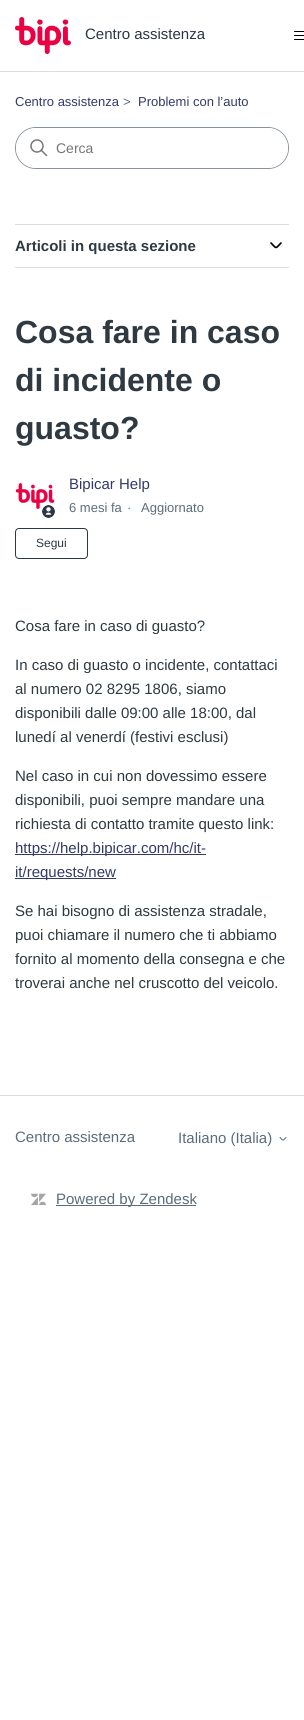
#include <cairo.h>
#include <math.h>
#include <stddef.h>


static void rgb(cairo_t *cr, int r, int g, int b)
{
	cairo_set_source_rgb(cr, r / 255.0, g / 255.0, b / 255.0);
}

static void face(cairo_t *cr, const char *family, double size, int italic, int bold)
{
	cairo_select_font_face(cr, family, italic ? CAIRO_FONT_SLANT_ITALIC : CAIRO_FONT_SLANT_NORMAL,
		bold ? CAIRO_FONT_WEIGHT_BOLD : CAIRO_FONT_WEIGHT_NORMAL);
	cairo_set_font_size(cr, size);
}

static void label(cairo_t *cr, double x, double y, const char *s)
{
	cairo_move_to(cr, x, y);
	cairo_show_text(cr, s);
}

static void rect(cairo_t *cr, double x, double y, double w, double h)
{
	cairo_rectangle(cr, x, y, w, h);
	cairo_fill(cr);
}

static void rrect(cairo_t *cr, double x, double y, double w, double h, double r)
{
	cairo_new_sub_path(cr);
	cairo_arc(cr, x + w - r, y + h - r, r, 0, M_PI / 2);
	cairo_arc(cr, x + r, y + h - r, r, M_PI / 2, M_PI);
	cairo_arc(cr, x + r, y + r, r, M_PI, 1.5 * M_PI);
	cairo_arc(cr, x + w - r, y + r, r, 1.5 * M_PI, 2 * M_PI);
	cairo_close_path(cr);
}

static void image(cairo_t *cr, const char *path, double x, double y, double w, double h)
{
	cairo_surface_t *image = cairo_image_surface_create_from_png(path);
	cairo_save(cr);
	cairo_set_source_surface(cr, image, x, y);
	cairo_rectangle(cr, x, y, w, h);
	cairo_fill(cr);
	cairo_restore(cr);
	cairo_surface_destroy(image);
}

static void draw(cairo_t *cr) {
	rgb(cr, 255, 255, 255);
	cairo_paint(cr);
	image(cr, "image0.png", 15, 17, 56, 37);
	face(cr, "Liberation Sans", 15, 0, 0);
	rgb(cr, 43, 54, 71);
	label(cr, 85, 39, "Centro assistenza");
	image(cr, "image1.png", 294, 31, 10, 9);
	rgb(cr, 221, 221, 221);
	rect(cr, 0, 71, 304, 1);
	face(cr, "Liberation Sans", 13, 0, 0);
	rgb(cr, 51, 58, 105);
	label(cr, 15, 106, "Centro assistenza");
	rgb(cr, 90, 109, 124);
	label(cr, 123, 106, ">");
	rgb(cr, 51, 58, 105);
	label(cr, 138, 106, "Problemi con l’auto");
	rrect(cr, 15.5, 127.5, 273, 41, 20.5);
	rgb(cr, 135, 146, 157);
	cairo_set_line_width(cr, 1);
	cairo_stroke(cr);
	rgb(cr, 255, 255, 255);
	rrect(cr, 16, 128, 272, 40, 20);
	cairo_fill(cr);
	image(cr, "image2.png", 30, 139, 18, 18);
	face(cr, "Liberation Sans", 14, 0, 0);
	rgb(cr, 117, 117, 117);
	label(cr, 56, 153, "Cerca");
	rgb(cr, 221, 221, 221);
	rect(cr, 15, 224, 274, 1);
	rect(cr, 15, 267, 274, 1);
	face(cr, "Liberation Sans", 15, 0, 1);
	rgb(cr, 47, 57, 65);
	label(cr, 15, 251, "Articoli in questa sezione");
	cairo_new_path(cr);
	cairo_move_to(cr, 271, 243);
	cairo_curve_to(cr, 277, 249, 275, 249, 281, 243);
	rgb(cr, 0, 0, 0);
	cairo_set_line_width(cr, 1.7);
	cairo_set_line_cap(cr, CAIRO_LINE_CAP_ROUND);
	cairo_stroke(cr);
	face(cr, "Liberation Sans", 32, 0, 1);
	rgb(cr, 47, 57, 65);
	label(cr, 15, 343, "Cosa fare in caso");
	label(cr, 15, 391, "di incidente o");
	label(cr, 15, 439, "guasto?");
	image(cr, "image3.png", 15, 483, 40, 26);
	image(cr, "image4.png", 42, 505, 13, 13);
	face(cr, "Liberation Sans", 15, 0, 0);
	rgb(cr, 51, 58, 105);
	label(cr, 69, 489, "Bipicar Help");
	face(cr, "Liberation Sans", 13, 0, 0);
	rgb(cr, 90, 109, 124);
	label(cr, 69, 512, "6 mesi fa");
	label(cr, 127, 512, "·");
	label(cr, 141, 512, "Aggiornato");
	rrect(cr, 15.5, 528.5, 72, 30, 3.5);
	rgb(cr, 43, 54, 71);
	cairo_set_line_width(cr, 1);
	cairo_set_line_cap(cr, CAIRO_LINE_CAP_BUTT);
	cairo_stroke(cr);
	face(cr, "Liberation Sans", 12, 0, 0);
	label(cr, 36, 547, "Segui");
	face(cr, "Liberation Sans", 15, 0, 0);
	rgb(cr, 47, 57, 65);
	label(cr, 15, 631, "Cosa fare in caso di guasto?");
	label(cr, 15, 670, "In caso di guasto o incidente, contattaci");
	label(cr, 15, 694, "al numero 02 8295 1806, siamo");
	label(cr, 15, 718, "disponibili dalle 09:00 alle 18:00, dal");
	label(cr, 15, 742, "lunedí al venerdí (festivi esclusi)");
	label(cr, 15, 781, "Nel caso in cui non dovessimo essere");
	label(cr, 15, 805, "disponibili, puoi sempre mandare una");
	label(cr, 15, 829, "richiesta di contatto tramite questo link:");
	rgb(cr, 51, 58, 105);
	rect(cr, 15, 854, 191, 1);
	label(cr, 15, 853, "https://help.bipicar.com/hc/it-");
	rect(cr, 15, 878, 101, 1);
	label(cr, 15, 877, "it/requests/new");
	rgb(cr, 47, 57, 65);
	label(cr, 15, 916, "Se hai bisogno di assistenza stradale,");
	label(cr, 15, 940, "puoi chiamare il numero che ti abbiamo");
	label(cr, 15, 964, "fornito al momento della consegna e che");
	label(cr, 15, 988, "troverai anche nel cruscotto del veicolo.");
	rgb(cr, 221, 221, 221);
	rect(cr, 0, 1095, 304, 1);
	rgb(cr, 90, 109, 124);
	label(cr, 15, 1142, "Centro assistenza");
	label(cr, 178, 1143, "Italiano (Italia)");
	cairo_new_path(cr);
	cairo_move_to(cr, 280, 1137.5);
	cairo_curve_to(cr, 283.5, 1141, 282.5, 1141, 286, 1137.5);
	cairo_set_line_cap(cr, CAIRO_LINE_CAP_ROUND);
	cairo_stroke(cr);
	image(cr, "image5.png", 31, 1193, 15, 13);
	rect(cr, 56, 1205, 140, 1);
	label(cr, 56, 1204, "Powered by Zendesk");
}

int main(void) {
	cairo_surface_t *surface = cairo_image_surface_create(CAIRO_FORMAT_RGB24, 304, 1720);
	cairo_t *cr = cairo_create(surface);
	cairo_font_options_t *options = cairo_font_options_create();
	cairo_font_options_set_hint_metrics(options, CAIRO_HINT_METRICS_OFF);
	cairo_font_options_set_hint_style(options, CAIRO_HINT_STYLE_NONE);
	cairo_set_font_options(cr, options);
	cairo_set_miter_limit(cr, 4);
	draw(cr);
	cairo_surface_write_to_png(surface, "render.png");
	cairo_font_options_destroy(options);
	cairo_destroy(cr);
	cairo_surface_destroy(surface);
	return 0;
}
